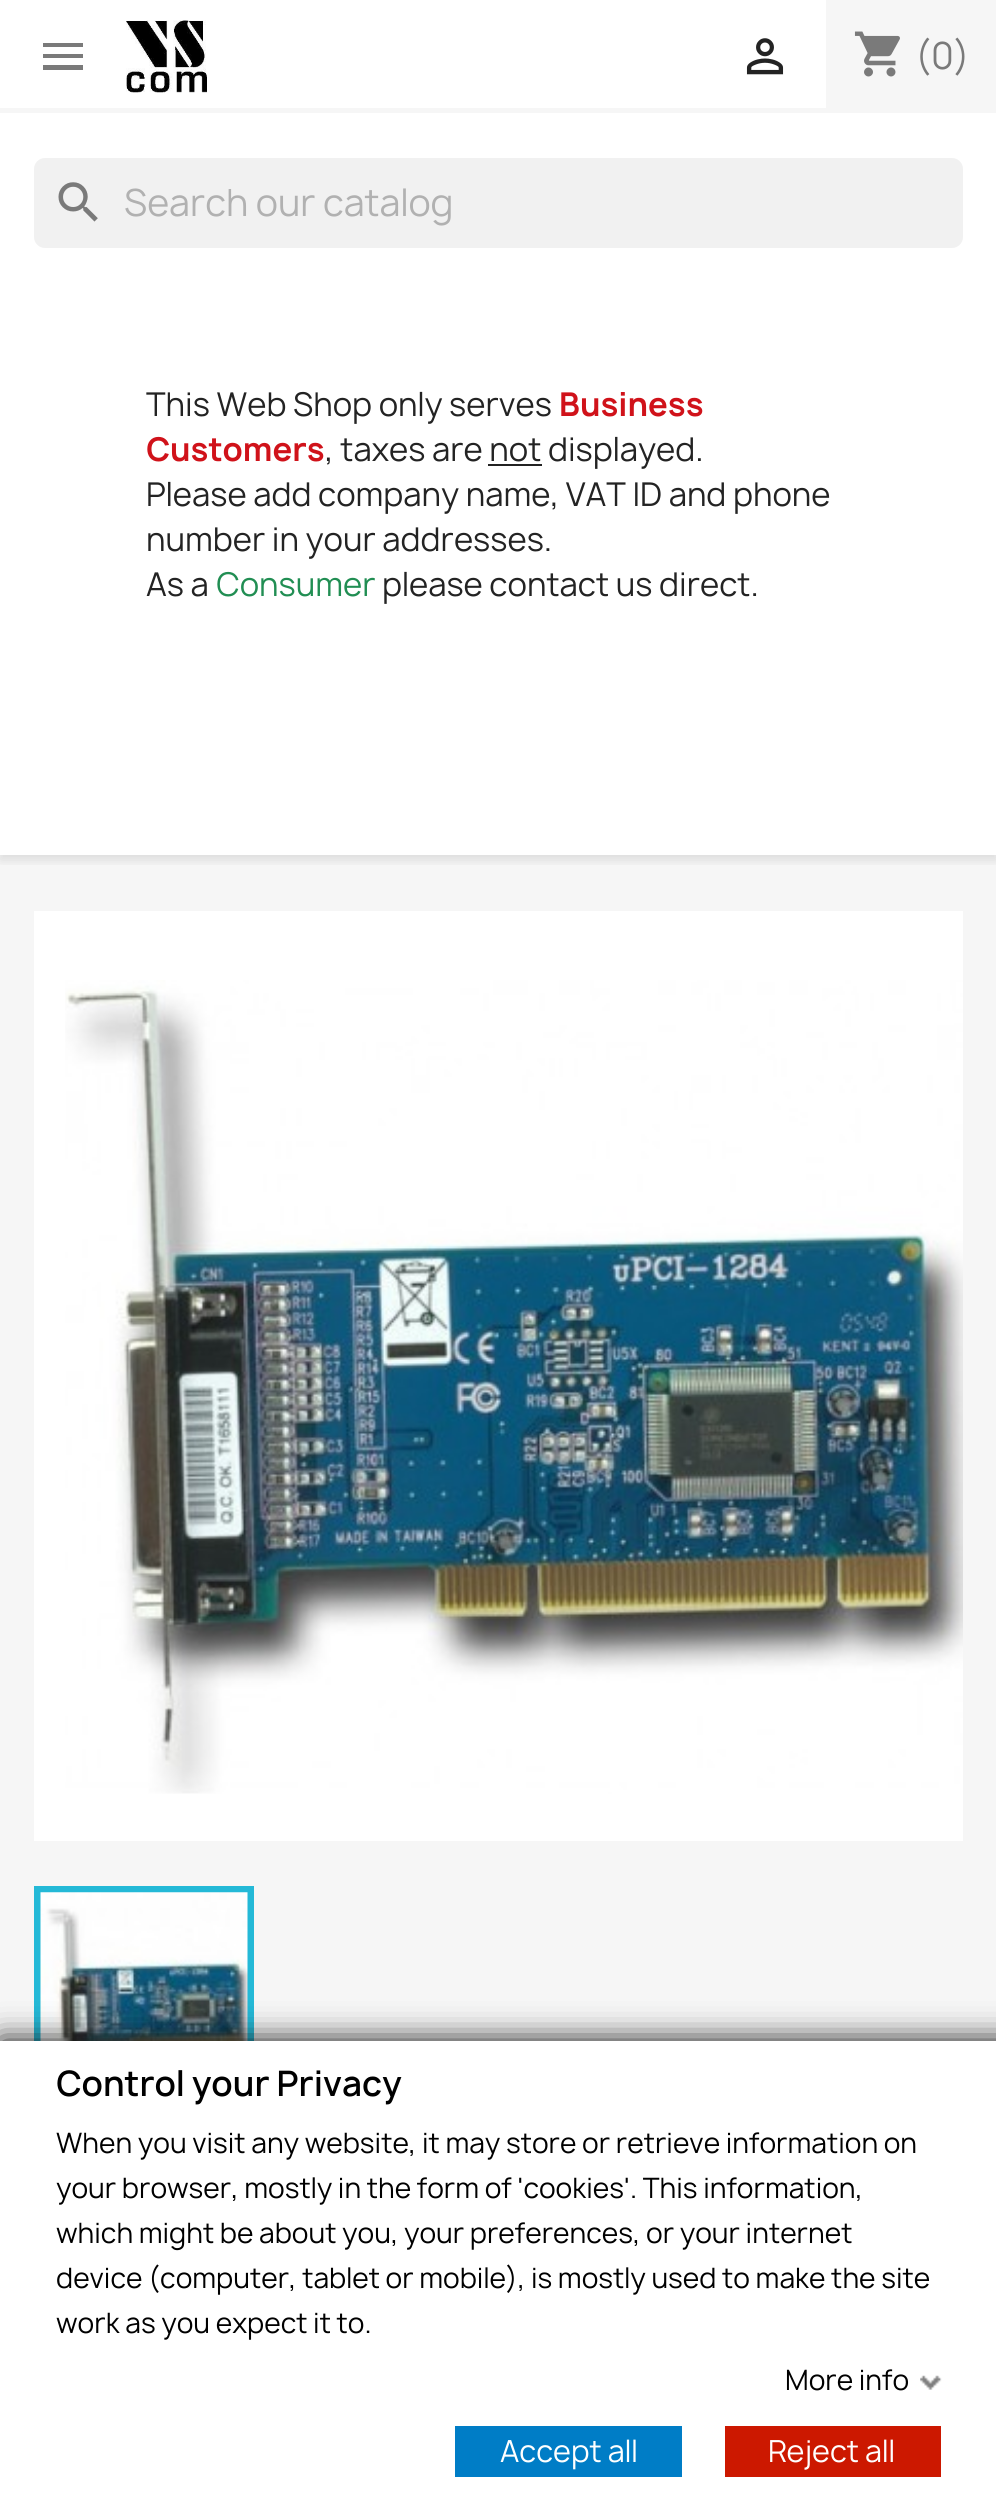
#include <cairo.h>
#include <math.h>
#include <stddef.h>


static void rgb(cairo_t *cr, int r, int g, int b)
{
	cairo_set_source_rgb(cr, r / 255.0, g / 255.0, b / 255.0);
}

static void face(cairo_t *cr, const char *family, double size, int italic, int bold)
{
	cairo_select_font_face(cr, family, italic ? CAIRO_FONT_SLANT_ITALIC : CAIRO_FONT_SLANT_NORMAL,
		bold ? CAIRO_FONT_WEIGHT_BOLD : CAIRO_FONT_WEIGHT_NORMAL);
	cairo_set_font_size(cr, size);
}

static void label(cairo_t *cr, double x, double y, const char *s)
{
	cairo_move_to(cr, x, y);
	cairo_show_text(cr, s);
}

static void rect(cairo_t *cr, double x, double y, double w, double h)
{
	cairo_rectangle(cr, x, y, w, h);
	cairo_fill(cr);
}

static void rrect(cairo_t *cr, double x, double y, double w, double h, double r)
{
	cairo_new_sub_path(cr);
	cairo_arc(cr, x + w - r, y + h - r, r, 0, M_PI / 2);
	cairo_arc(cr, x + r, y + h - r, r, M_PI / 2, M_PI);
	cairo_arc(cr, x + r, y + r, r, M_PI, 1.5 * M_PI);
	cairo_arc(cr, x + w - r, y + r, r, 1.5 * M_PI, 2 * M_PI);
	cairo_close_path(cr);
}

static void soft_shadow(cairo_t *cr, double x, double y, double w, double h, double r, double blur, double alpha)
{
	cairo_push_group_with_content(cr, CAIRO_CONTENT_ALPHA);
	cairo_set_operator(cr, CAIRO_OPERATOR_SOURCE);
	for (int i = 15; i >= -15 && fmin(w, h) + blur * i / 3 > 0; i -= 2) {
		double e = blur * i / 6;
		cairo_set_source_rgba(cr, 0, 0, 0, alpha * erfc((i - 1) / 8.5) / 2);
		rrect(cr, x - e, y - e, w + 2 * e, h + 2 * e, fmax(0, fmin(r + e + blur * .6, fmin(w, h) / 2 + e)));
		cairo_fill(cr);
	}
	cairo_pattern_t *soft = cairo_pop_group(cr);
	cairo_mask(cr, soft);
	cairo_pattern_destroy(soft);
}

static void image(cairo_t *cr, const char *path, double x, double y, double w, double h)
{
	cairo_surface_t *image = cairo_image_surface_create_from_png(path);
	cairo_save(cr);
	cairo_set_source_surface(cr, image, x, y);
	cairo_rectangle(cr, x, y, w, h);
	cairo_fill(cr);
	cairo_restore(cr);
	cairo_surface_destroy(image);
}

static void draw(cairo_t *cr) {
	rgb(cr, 255, 255, 255);
	cairo_paint(cr);
	rgb(cr, 246, 246, 246);
	rect(cr, 0, 855, 996, 1186);
	cairo_save(cr);
	cairo_rectangle(cr, 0, 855, 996, 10);
	cairo_clip(cr);
	rgb(cr, 0, 0, 0);
	soft_shadow(cr, 0, 5, 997, 855, 0, 5.5, 0.11);
	cairo_restore(cr);
	rect(cr, 0, 108, 996, 5);
	rgb(cr, 122, 122, 122);
	cairo_new_path(cr);
	cairo_move_to(cr, 43, 43);
	cairo_line_to(cr, 83, 43);
	cairo_line_to(cr, 83, 47);
	cairo_line_to(cr, 43, 47);
	cairo_close_path(cr);
	cairo_move_to(cr, 43, 58);
	cairo_line_to(cr, 43, 54);
	cairo_line_to(cr, 83, 54);
	cairo_line_to(cr, 83, 58);
	cairo_close_path(cr);
	cairo_move_to(cr, 43, 70);
	cairo_line_to(cr, 43, 65);
	cairo_line_to(cr, 83, 65);
	cairo_line_to(cr, 83, 70);
	cairo_close_path(cr);
	cairo_fill(cr);
	image(cr, "image0.png", 126, 20, 81, 73);
	image(cr, "image1.png", 746, 38, 38, 37);
	rgb(cr, 246, 246, 246);
	rect(cr, 826, 0, 170, 108);
	image(cr, "image2.png", 854, 31, 46, 46);
	face(cr, "Manrope", 36, 0, 0);
	rgb(cr, 122, 122, 122);
	label(cr, 915, 69, "(0)");
	rgb(cr, 241, 241, 241);
	rrect(cr, 34, 158, 929, 90, 11);
	cairo_fill(cr);
	image(cr, "image3.png", 58, 182, 40, 40);
	rgb(cr, 177, 177, 177);
	label(cr, 124, 216, "Search our catalog");
	face(cr, "Manrope", 31.5, 0, 0);
	rgb(cr, 35, 35, 35);
	label(cr, 146, 416, "This Web Shop only serves");
	face(cr, "Manrope", 31.5, 0, 1);
	rgb(cr, 208, 18, 26);
	label(cr, 559, 416, "Business");
	label(cr, 146, 461, "Customers");
	face(cr, "Manrope", 31.5, 0, 0);
	rgb(cr, 35, 35, 35);
	label(cr, 325, 461, ", taxes are not displayed.");
	rect(cr, 488, 464, 54, 2);
	label(cr, 146, 506, "Please add company name, VAT ID and phone");
	label(cr, 146, 551, "number in your addresses.");
	label(cr, 146, 596, "As a");
	rgb(cr, 33, 142, 83);
	label(cr, 216, 596, "Consumer");
	rgb(cr, 35, 35, 35);
	label(cr, 382, 596, "please contact us direct.");
	rgb(cr, 255, 255, 255);
	rect(cr, 34, 911, 929, 930);
	image(cr, "image4.png", 65, 980, 898, 814);
	cairo_rectangle(cr, 37.5, 1889.5, 213, 213);
	rgb(cr, 36, 185, 215);
	cairo_set_line_width(cr, 7);
	cairo_stroke(cr);
	image(cr, "image5.png", 40, 1892, 208, 149);
	rgb(cr, 18, 18, 18);
	soft_shadow(cr, 0, 2041, 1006, 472, 0, 16, 1);
	rgb(cr, 255, 255, 255);
	rect(cr, 0, 2041, 996, 462);
	face(cr, "Manrope SemiBold", 33.75, 0, 0);
	rgb(cr, 0, 0, 0);
	label(cr, 56, 2096, "Control your Privacy");
	face(cr, "Manrope", 27, 0, 0);
	label(cr, 56, 2153, "When you visit any website, it may store or retrieve information on");
	label(cr, 56, 2198, "your browser, mostly in the form of 'cookies'. This information,");
	label(cr, 56, 2243, "which might be about you, your preferences, or your internet");
	label(cr, 56, 2288, "device (computer, tablet or mobile), is mostly used to make the site");
	label(cr, 56, 2333, "work as you expect it to.");
	label(cr, 785, 2390, "More info");
	image(cr, "image6.png", 920, 2375, 22, 15);
	rgb(cr, 0, 125, 198);
	rect(cr, 455, 2426, 227, 51);
	face(cr, "Manrope", 29.25, 0, 0);
	rgb(cr, 255, 255, 255);
	label(cr, 500, 2462, "Accept all");
	rgb(cr, 204, 24, 0);
	rect(cr, 725, 2426, 216, 51);
	rgb(cr, 255, 255, 255);
	label(cr, 768, 2462, "Reject all");
}

int main(void) {
	cairo_surface_t *surface = cairo_image_surface_create(CAIRO_FORMAT_RGB24, 996, 2503);
	cairo_t *cr = cairo_create(surface);
	cairo_font_options_t *options = cairo_font_options_create();
	cairo_font_options_set_hint_metrics(options, CAIRO_HINT_METRICS_OFF);
	cairo_font_options_set_hint_style(options, CAIRO_HINT_STYLE_NONE);
	cairo_set_font_options(cr, options);
	cairo_set_miter_limit(cr, 4);
	draw(cr);
	cairo_surface_write_to_png(surface, "render.png");
	cairo_font_options_destroy(options);
	cairo_destroy(cr);
	cairo_surface_destroy(surface);
	return 0;
}
